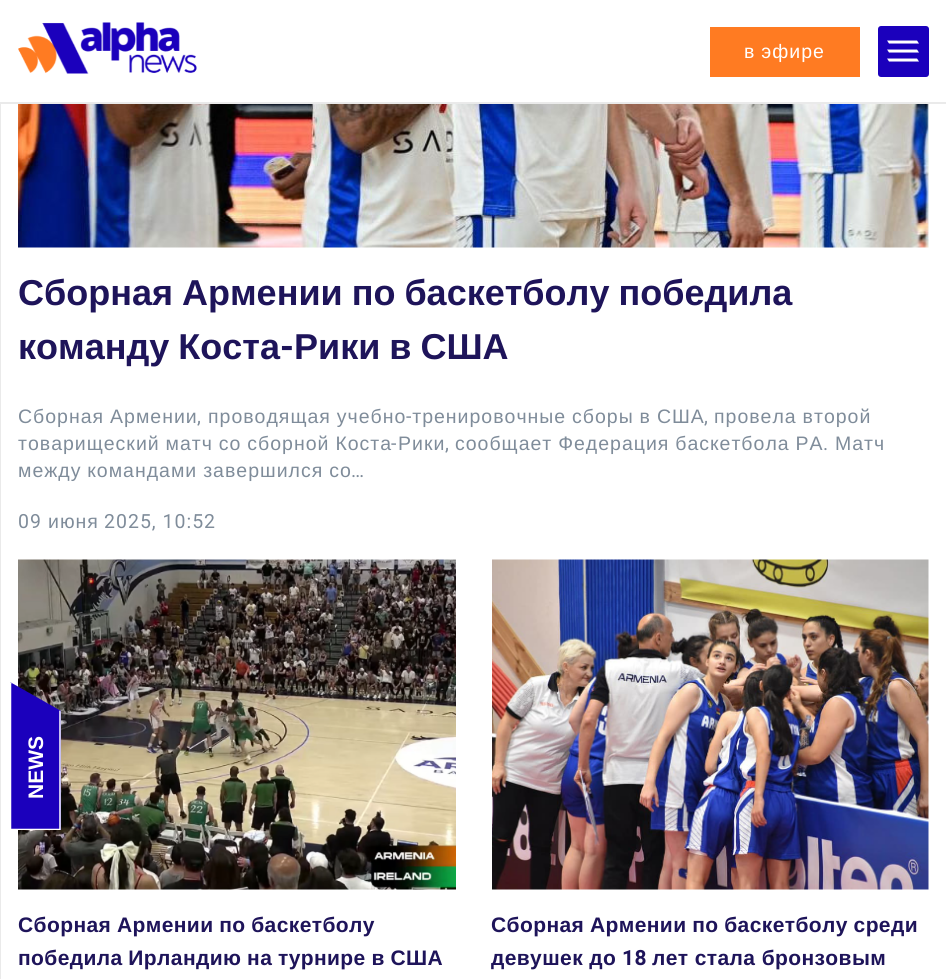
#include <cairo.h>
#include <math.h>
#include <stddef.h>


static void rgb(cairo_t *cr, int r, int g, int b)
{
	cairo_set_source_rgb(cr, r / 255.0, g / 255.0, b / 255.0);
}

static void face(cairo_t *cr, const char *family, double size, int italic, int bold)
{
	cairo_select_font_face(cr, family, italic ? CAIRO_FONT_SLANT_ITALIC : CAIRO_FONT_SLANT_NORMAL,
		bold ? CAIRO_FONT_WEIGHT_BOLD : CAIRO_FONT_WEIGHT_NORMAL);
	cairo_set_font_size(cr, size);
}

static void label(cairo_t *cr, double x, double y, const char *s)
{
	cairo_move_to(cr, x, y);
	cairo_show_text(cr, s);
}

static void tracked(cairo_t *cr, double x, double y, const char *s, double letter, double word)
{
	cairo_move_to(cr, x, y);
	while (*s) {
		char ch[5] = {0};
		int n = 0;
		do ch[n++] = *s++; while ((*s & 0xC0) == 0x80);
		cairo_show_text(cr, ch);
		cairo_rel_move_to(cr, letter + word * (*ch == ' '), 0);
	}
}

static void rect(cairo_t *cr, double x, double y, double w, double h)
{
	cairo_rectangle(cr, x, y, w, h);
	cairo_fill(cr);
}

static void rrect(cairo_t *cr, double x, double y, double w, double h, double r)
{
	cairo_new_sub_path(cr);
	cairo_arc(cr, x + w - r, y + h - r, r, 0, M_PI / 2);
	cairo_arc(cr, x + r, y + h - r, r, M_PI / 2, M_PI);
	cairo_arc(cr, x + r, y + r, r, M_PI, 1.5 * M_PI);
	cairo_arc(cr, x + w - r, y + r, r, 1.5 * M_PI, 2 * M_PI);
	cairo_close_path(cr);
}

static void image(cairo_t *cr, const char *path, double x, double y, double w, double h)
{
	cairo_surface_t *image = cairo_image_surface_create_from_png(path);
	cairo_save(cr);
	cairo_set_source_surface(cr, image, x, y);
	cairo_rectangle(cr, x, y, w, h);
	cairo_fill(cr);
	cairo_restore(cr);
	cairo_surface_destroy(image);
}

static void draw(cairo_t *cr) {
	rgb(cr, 255, 255, 255);
	cairo_paint(cr);
	rgb(cr, 234, 234, 234);
	rect(cr, 0, 102, 1, 877);
	rect(cr, 0, 102, 946, 2);
	image(cr, "image0.png", 18, 22, 179, 52);
	rgb(cr, 255, 123, 34);
	rect(cr, 710, 27, 150, 50);
	face(cr, "Liberation Sans", 19.5, 0, 0);
	rgb(cr, 255, 255, 255);
	tracked(cr, 744, 58, "в эфире", 1, -0.5);
	rgb(cr, 27, 0, 188);
	rrect(cr, 878, 26, 51, 51, 3);
	cairo_fill(cr);
	rgb(cr, 255, 255, 255);
	cairo_new_path(cr);
	cairo_move_to(cr, 887, 40.5);
	cairo_line_to(cr, 917, 40.5);
	cairo_line_to(cr, 919, 43.5);
	cairo_line_to(cr, 889, 43.5);
	cairo_close_path(cr);
	cairo_move_to(cr, 887, 49.5);
	cairo_line_to(cr, 917, 49.5);
	cairo_line_to(cr, 919, 52.5);
	cairo_line_to(cr, 889, 52.5);
	cairo_close_path(cr);
	cairo_move_to(cr, 887, 58.5);
	cairo_line_to(cr, 917, 58.5);
	cairo_line_to(cr, 919, 61.5);
	cairo_line_to(cr, 889, 61.5);
	cairo_close_path(cr);
	cairo_fill(cr);
	image(cr, "image1.png", 18, 104, 911, 144);
	face(cr, "Liberation Sans", 36, 0, 1);
	rgb(cr, 30, 20, 90);
	tracked(cr, 18, 305, "Сборная Армении по баскетболу победила", 0, -1);
	tracked(cr, 18, 359, "команду Коста", 0, -1);
	face(cr, "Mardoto", 36, 0, 1);
	label(cr, 280, 359, "-");
	face(cr, "Liberation Sans", 36, 0, 1);
	tracked(cr, 294, 359, "Рики в США", 0, -1);
	face(cr, "Liberation Sans", 19.5, 0, 0);
	rgb(cr, 127, 140, 154);
	tracked(cr, 18, 423, "Сборная Армении", 1, -0.5);
	tracked(cr, 208, 423, "проводящая учебно тренировочные сборы в США", 1, -0.5);
	tracked(cr, 714, 423, "провела второй", 1, -0.5);
	face(cr, "Mardoto", 19.5, 0, 0);
	tracked(cr, 406, 423, "-", 1, 0);
	tracked(cr, 197, 423, ",", 1, 0);
	tracked(cr, 704, 423, ",", 1, 0);
	face(cr, "Liberation Sans", 19.5, 0, 0);
	tracked(cr, 18, 450, "товарищеский матч со сборной Коста", 1, -0.5);
	face(cr, "Mardoto", 19.5, 0, 0);
	tracked(cr, 391, 450, "-", 1, 0);
	face(cr, "Liberation Sans", 19.5, 0, 0);
	tracked(cr, 398, 450, "Рики", 1, 0);
	tracked(cr, 455, 450, "сообщает Федерация баскетбола РА", 1, -0.5);
	tracked(cr, 835, 450, "Матч", 1, 0);
	face(cr, "Mardoto", 19.5, 0, 0);
	tracked(cr, 445, 450, ",", 1, 0);
	tracked(cr, 823, 450, ".", 1, 0);
	face(cr, "Liberation Sans", 19.5, 0, 0);
	tracked(cr, 18, 477, "между командами завершился со", 1, -0.5);
	face(cr, "Mardoto", 19.5, 0, 0);
	tracked(cr, 351, 477, "…", 1, 0);
	tracked(cr, 18, 528, "09", 1, 0);
	face(cr, "Liberation Sans", 19.5, 0, 0);
	tracked(cr, 48, 528, "июня", 1, 0);
	face(cr, "Mardoto", 19.5, 0, 0);
	tracked(cr, 104, 528, "2025, 10:52", 1, 0);
	image(cr, "image2.png", 18, 559, 438, 331);
	face(cr, "Liberation Sans", 21, 0, 1);
	rgb(cr, 30, 20, 90);
	tracked(cr, 18, 932, "Сборная Армении по баскетболу", 0.4, -0.5);
	tracked(cr, 18, 965, "победила Ирландию на турнире в США", 0.4, -0.5);
	image(cr, "image3.png", 492, 559, 437, 331);
	tracked(cr, 491, 932, "Сборная Армении по баскетболу среди", 0.4, -0.5);
	tracked(cr, 491, 965, "девушек до", 0.4, 0);
	face(cr, "Mardoto", 21, 0, 1);
	tracked(cr, 622, 965, "18", 0.4, 0);
	face(cr, "Liberation Sans", 21, 0, 1);
	tracked(cr, 652, 965, "лет стала бронзовым", 0.4, 0);
	rgb(cr, 27, 0, 188);
	cairo_new_path(cr);
	cairo_move_to(cr, 10, 682);
	cairo_line_to(cr, 61, 711);
	cairo_line_to(cr, 61, 830);
	cairo_line_to(cr, 10, 830);
	cairo_close_path(cr);
	cairo_fill(cr);
	cairo_save(cr);
	cairo_new_path(cr);
	cairo_move_to(cr, 10, 830);
	cairo_line_to(cr, 10, 682);
	cairo_line_to(cr, 61, 711.5);
	cairo_line_to(cr, 61, 830);
	cairo_close_path(cr);
	cairo_clip(cr);
	cairo_new_path(cr);
	cairo_move_to(cr, 10.5, 829.5);
	cairo_line_to(cr, 10.5, 682.5);
	cairo_line_to(cr, 60, 682.5);
	cairo_line_to(cr, 60, 829.5);
	cairo_close_path(cr);
	rgb(cr, 255, 255, 255);
	cairo_set_line_width(cr, 1.5);
	cairo_stroke(cr);
	cairo_restore(cr);
	rgb(cr, 255, 255, 255);
	cairo_save(cr);
	cairo_translate(cr, 43, 799);
	cairo_rotate(cr, -90 * M_PI / 180);
	label(cr, 0, 0, "NEWS");
	cairo_restore(cr);
}

int main(void) {
	cairo_surface_t *surface = cairo_image_surface_create(CAIRO_FORMAT_RGB24, 946, 979);
	cairo_t *cr = cairo_create(surface);
	cairo_font_options_t *options = cairo_font_options_create();
	cairo_font_options_set_hint_metrics(options, CAIRO_HINT_METRICS_OFF);
	cairo_font_options_set_hint_style(options, CAIRO_HINT_STYLE_NONE);
	cairo_set_font_options(cr, options);
	cairo_set_miter_limit(cr, 4);
	draw(cr);
	cairo_surface_write_to_png(surface, "render.png");
	cairo_font_options_destroy(options);
	cairo_destroy(cr);
	cairo_surface_destroy(surface);
	return 0;
}
